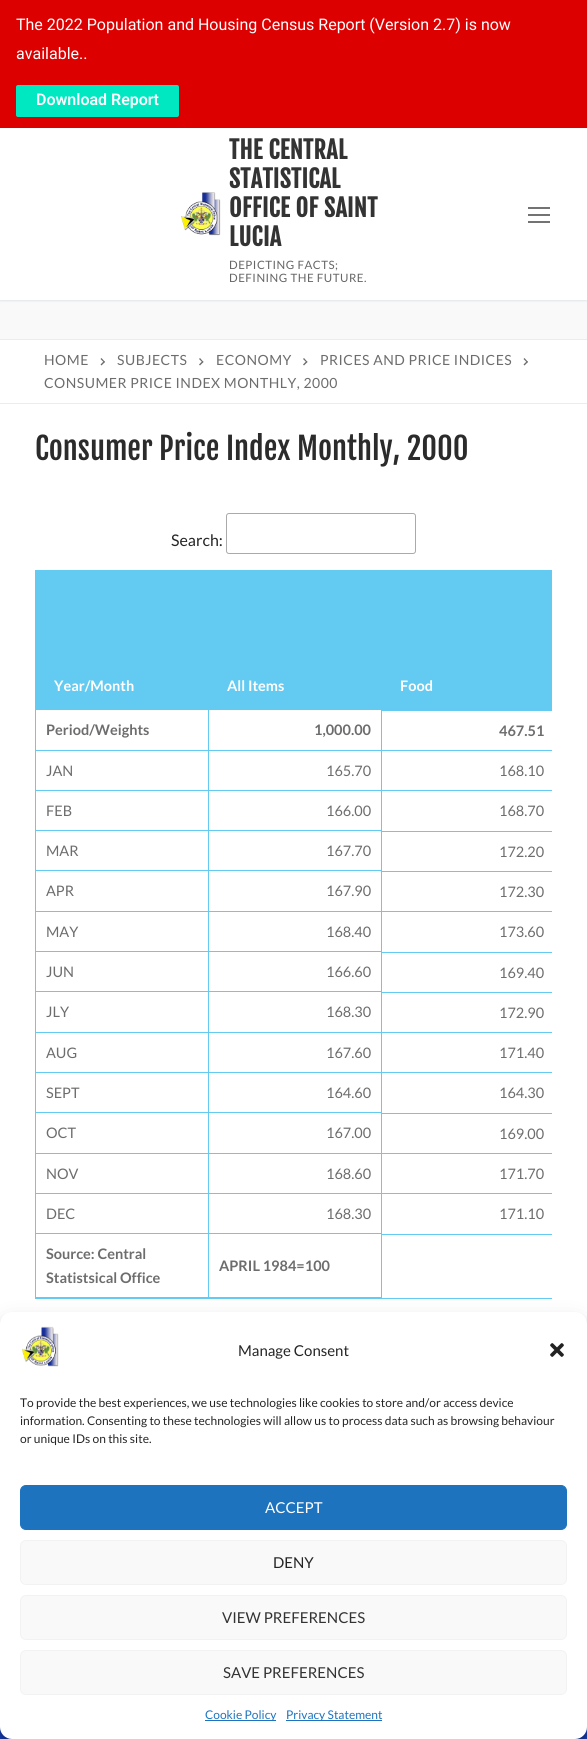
#include <cairo.h>
#include <math.h>
#include <stddef.h>


static void rgb(cairo_t *cr, int r, int g, int b)
{
	cairo_set_source_rgb(cr, r / 255.0, g / 255.0, b / 255.0);
}

static void face(cairo_t *cr, const char *family, double size, int italic, int bold)
{
	cairo_select_font_face(cr, family, italic ? CAIRO_FONT_SLANT_ITALIC : CAIRO_FONT_SLANT_NORMAL,
		bold ? CAIRO_FONT_WEIGHT_BOLD : CAIRO_FONT_WEIGHT_NORMAL);
	cairo_set_font_size(cr, size);
}

static void label(cairo_t *cr, double x, double y, const char *s)
{
	cairo_move_to(cr, x, y);
	cairo_show_text(cr, s);
}

static void tracked(cairo_t *cr, double x, double y, const char *s, double letter, double word)
{
	cairo_move_to(cr, x, y);
	while (*s) {
		char ch[5] = {0};
		int n = 0;
		do ch[n++] = *s++; while ((*s & 0xC0) == 0x80);
		cairo_show_text(cr, ch);
		cairo_rel_move_to(cr, letter + word * (*ch == ' '), 0);
	}
}

static void rect(cairo_t *cr, double x, double y, double w, double h)
{
	cairo_rectangle(cr, x, y, w, h);
	cairo_fill(cr);
}

static void rrect(cairo_t *cr, double x, double y, double w, double h, double r)
{
	cairo_new_sub_path(cr);
	cairo_arc(cr, x + w - r, y + h - r, r, 0, M_PI / 2);
	cairo_arc(cr, x + r, y + h - r, r, M_PI / 2, M_PI);
	cairo_arc(cr, x + r, y + r, r, M_PI, 1.5 * M_PI);
	cairo_arc(cr, x + w - r, y + r, r, 1.5 * M_PI, 2 * M_PI);
	cairo_close_path(cr);
}

static void soft_shadow(cairo_t *cr, double x, double y, double w, double h, double r, double blur, double alpha)
{
	cairo_push_group_with_content(cr, CAIRO_CONTENT_ALPHA);
	cairo_set_operator(cr, CAIRO_OPERATOR_SOURCE);
	for (int i = 15; i >= -15 && fmin(w, h) + blur * i / 3 > 0; i -= 2) {
		double e = blur * i / 6;
		cairo_set_source_rgba(cr, 0, 0, 0, alpha * erfc((i - 1) / 8.5) / 2);
		rrect(cr, x - e, y - e, w + 2 * e, h + 2 * e, fmax(0, fmin(r + e + blur * .6, fmin(w, h) / 2 + e)));
		cairo_fill(cr);
	}
	cairo_pattern_t *soft = cairo_pop_group(cr);
	cairo_mask(cr, soft);
	cairo_pattern_destroy(soft);
}

static void image(cairo_t *cr, const char *path, double x, double y, double w, double h)
{
	cairo_surface_t *image = cairo_image_surface_create_from_png(path);
	cairo_save(cr);
	cairo_set_source_surface(cr, image, x, y);
	cairo_rectangle(cr, x, y, w, h);
	cairo_fill(cr);
	cairo_restore(cr);
	cairo_surface_destroy(image);
}

static void draw(cairo_t *cr) {
	rgb(cr, 249, 249, 249);
	cairo_paint(cr);
	rgb(cr, 225, 229, 234);
	soft_shadow(cr, 0, 129, 587, 172, 0, 1, 1);
	rgb(cr, 221, 0, 0);
	rect(cr, 0, 0, 587, 128);
	face(cr, "Roboto", 16, 0, 0);
	rgb(cr, 255, 255, 255);
	label(cr, 16, 30, "The 2022 Population and Housing Census Report (Version 2.7) is now");
	label(cr, 16, 59, "available..");
	rgb(cr, 0, 232, 193);
	rrect(cr, 16, 85, 163, 32, 2);
	cairo_fill(cr);
	face(cr, "Roboto SemiBold", 16, 0, 0);
	rgb(cr, 255, 255, 255);
	label(cr, 36, 105, "Download Report");
	rect(cr, 0, 128, 587, 172);
	image(cr, "image0.png", 181, 192, 40, 44);
	face(cr, "Fjalla One", 24, 0, 1);
	rgb(cr, 51, 51, 51);
	tracked(cr, 229, 159, "THE CENTRAL", 0.4, 0);
	tracked(cr, 229, 188, "STATISTICAL", 0.4, 0);
	tracked(cr, 229, 217, "OFFICE OF SAINT", 0.4, 0);
	tracked(cr, 229, 246, "LUCIA", 0.4, 0);
	face(cr, "Lato", 11.5, 0, 0);
	rgb(cr, 102, 102, 102);
	tracked(cr, 229, 269, "DEPICTING FACTS;", 0.5, 0);
	tracked(cr, 229, 282, "DEFINING THE FUTURE.", 0.5, 0);
	rgb(cr, 115, 115, 115);
	rect(cr, 528, 214, 22, 2);
	rect(cr, 528, 207, 22, 2);
	rect(cr, 528, 221, 22, 2);
	rgb(cr, 234, 236, 238);
	rect(cr, 0, 339, 587, 1);
	rgb(cr, 255, 255, 255);
	rect(cr, 0, 340, 587, 63);
	rgb(cr, 234, 236, 238);
	rect(cr, 0, 403, 587, 1);
	face(cr, "Lato", 14, 0, 0);
	rgb(cr, 109, 109, 109);
	tracked(cr, 44, 365, "HOME", 0.5, 0);
	cairo_new_path(cr);
	cairo_move_to(cr, 105, 362);
	cairo_line_to(cr, 101.5, 365.5);
	cairo_line_to(cr, 100.5, 364.5);
	cairo_line_to(cr, 104, 361);
	cairo_close_path(cr);
	cairo_fill(cr);
	cairo_new_path(cr);
	cairo_move_to(cr, 105, 362);
	cairo_line_to(cr, 104, 362.5);
	cairo_line_to(cr, 100.5, 359);
	cairo_line_to(cr, 101.5, 358);
	cairo_close_path(cr);
	cairo_fill(cr);
	tracked(cr, 117, 365, "SUBJECTS", 0.5, 0);
	cairo_new_path(cr);
	cairo_move_to(cr, 203.5, 362);
	cairo_line_to(cr, 200, 365.5);
	cairo_line_to(cr, 199, 364.5);
	cairo_line_to(cr, 202.5, 361);
	cairo_close_path(cr);
	cairo_fill(cr);
	cairo_new_path(cr);
	cairo_move_to(cr, 203.5, 362);
	cairo_line_to(cr, 202.5, 362.5);
	cairo_line_to(cr, 199, 359);
	cairo_line_to(cr, 200, 358);
	cairo_close_path(cr);
	cairo_fill(cr);
	tracked(cr, 216, 365, "ECONOMY", 0.5, 0);
	cairo_new_path(cr);
	cairo_move_to(cr, 307.5, 362);
	cairo_line_to(cr, 304, 365.5);
	cairo_line_to(cr, 303, 364.5);
	cairo_line_to(cr, 306.5, 361);
	cairo_close_path(cr);
	cairo_fill(cr);
	cairo_new_path(cr);
	cairo_move_to(cr, 307.5, 362);
	cairo_line_to(cr, 306.5, 362.5);
	cairo_line_to(cr, 303, 359);
	cairo_line_to(cr, 304, 358);
	cairo_close_path(cr);
	cairo_fill(cr);
	tracked(cr, 320, 365, "PRICES AND PRICE INDICES", 0.5, 0);
	cairo_new_path(cr);
	cairo_move_to(cr, 528, 362);
	cairo_line_to(cr, 524.5, 365.5);
	cairo_line_to(cr, 523.5, 364.5);
	cairo_line_to(cr, 527, 361);
	cairo_close_path(cr);
	cairo_fill(cr);
	cairo_new_path(cr);
	cairo_move_to(cr, 528, 362);
	cairo_line_to(cr, 527, 362.5);
	cairo_line_to(cr, 523.5, 359);
	cairo_line_to(cr, 524.5, 358);
	cairo_close_path(cr);
	cairo_fill(cr);
	tracked(cr, 44, 388, "CONSUMER PRICE INDEX MONTHLY, 2000", 0.5, 0);
	rgb(cr, 255, 255, 255);
	rect(cr, 0, 404, 587, 920);
	face(cr, "Fjalla One", 30.4, 0, 0);
	rgb(cr, 43, 43, 43);
	label(cr, 35, 460, "Consumer Price Index Monthly, 2000");
	face(cr, "Lato", 16, 0, 0);
	rgb(cr, 37, 37, 37);
	label(cr, 171, 546, "Search:");
	rrect(cr, 226.5, 513.5, 189, 40, 2.5);
	rgb(cr, 170, 170, 170);
	cairo_set_line_width(cr, 1);
	cairo_stroke(cr);
	rgb(cr, 99, 202, 242);
	rect(cr, 36, 571, 346, 137);
	face(cr, "Lato", 14.5, 0, 1);
	rgb(cr, 255, 255, 255);
	label(cr, 54, 691, "Year/Month");
	label(cr, 227, 691, "All Items");
	rgb(cr, 99, 202, 242);
	rect(cr, 36, 709, 346, 1);
	rgb(cr, 109, 109, 109);
	label(cr, 46, 735, "Period/Weights");
	rgb(cr, 99, 202, 242);
	rect(cr, 208, 830, 174, 1);
	rect(cr, 208, 870, 174, 1);
	rect(cr, 208, 951, 174, 1);
	rect(cr, 208, 991, 174, 1);
	rect(cr, 208, 1112, 174, 1);
	rect(cr, 208, 1233, 174, 1);
	rect(cr, 208, 1153, 344, 1);
	rect(cr, 208, 1193, 344, 1);
	rect(cr, 381, 1234, 171, 1);
	rect(cr, 381, 1153, 1, 145);
	rect(cr, 208, 1297, 174, 1);
	rect(cr, 208, 1233, 1, 65);
	rect(cr, 35, 1298, 517, 1);
	rect(cr, 35, 709, 1, 590);
	rect(cr, 35, 1233, 174, 1);
	rect(cr, 208, 1193, 1, 41);
	rect(cr, 35, 1193, 174, 1);
	rect(cr, 208, 1153, 1, 41);
	rect(cr, 35, 1153, 174, 1);
	rect(cr, 208, 1112, 1, 42);
	rect(cr, 35, 1112, 174, 1);
	rect(cr, 208, 1072, 344, 1);
	rect(cr, 208, 1072, 1, 41);
	rect(cr, 35, 1072, 174, 1);
	rect(cr, 208, 1032, 344, 1);
	rect(cr, 208, 1032, 1, 41);
	rect(cr, 35, 1032, 174, 1);
	rect(cr, 208, 991, 1, 42);
	rect(cr, 35, 991, 174, 1);
	rect(cr, 208, 951, 1, 41);
	rect(cr, 35, 951, 174, 1);
	rect(cr, 208, 911, 344, 1);
	rect(cr, 208, 911, 1, 41);
	rect(cr, 35, 911, 174, 1);
	rect(cr, 208, 870, 1, 42);
	rect(cr, 35, 870, 174, 1);
	rect(cr, 208, 830, 1, 41);
	rect(cr, 35, 830, 174, 1);
	rect(cr, 208, 790, 344, 1);
	rect(cr, 208, 790, 1, 41);
	rect(cr, 35, 790, 174, 1);
	rect(cr, 208, 750, 344, 1);
	rect(cr, 208, 750, 1, 41);
	rect(cr, 35, 750, 174, 1);
	rect(cr, 208, 709, 1, 42);
	rgb(cr, 109, 109, 109);
	label(cr, 314, 735, "1,000.00");
	face(cr, "Lato", 14.5, 0, 0);
	label(cr, 46, 776, "JAN");
	label(cr, 326, 776, "165.70");
	label(cr, 46, 816, "FEB");
	label(cr, 326, 816, "166.00");
	label(cr, 46, 856, "MAR");
	rgb(cr, 99, 202, 242);
	rect(cr, 381, 1113, 171, 1);
	rect(cr, 381, 1032, 1, 122);
	rect(cr, 381, 992, 171, 1);
	rect(cr, 381, 991, 1, 42);
	rect(cr, 381, 952, 171, 1);
	rect(cr, 381, 911, 1, 81);
	rect(cr, 381, 871, 171, 1);
	rect(cr, 381, 870, 1, 42);
	rect(cr, 381, 710, 171, 1);
	rect(cr, 381, 831, 171, 1);
	rect(cr, 381, 709, 1, 162);
	rgb(cr, 109, 109, 109);
	label(cr, 326, 856, "167.70");
	label(cr, 46, 896, "APR");
	label(cr, 326, 896, "167.90");
	label(cr, 46, 937, "MAY");
	label(cr, 326, 937, "168.40");
	label(cr, 46, 977, "JUN");
	label(cr, 326, 977, "166.60");
	label(cr, 46, 1017, "JLY");
	label(cr, 326, 1017, "168.30");
	label(cr, 46, 1058, "AUG");
	label(cr, 326, 1058, "167.60");
	label(cr, 46, 1098, "SEPT");
	label(cr, 326, 1098, "164.60");
	label(cr, 46, 1138, "OCT");
	label(cr, 326, 1138, "167.00");
	label(cr, 46, 1179, "NOV");
	label(cr, 326, 1179, "168.60");
	label(cr, 46, 1219, "DEC");
	label(cr, 326, 1219, "168.30");
	rgb(cr, 99, 202, 242);
	rect(cr, 35, 1297, 174, 1);
	face(cr, "Lato", 14.5, 0, 1);
	rgb(cr, 109, 109, 109);
	label(cr, 46, 1259, "Source: Central");
	label(cr, 46, 1283, "Statistsical Office");
	label(cr, 219, 1271, "APRIL 1984=100");
	rgb(cr, 99, 202, 242);
	rect(cr, 35, 570, 517, 1);
	rect(cr, 35, 708, 517, 1);
	rect(cr, 35, 570, 1, 139);
	rect(cr, 382, 571, 170, 137);
	rgb(cr, 255, 255, 255);
	label(cr, 400, 691, "Food");
	rgb(cr, 99, 202, 242);
	rect(cr, 382, 709, 170, 1);
	rgb(cr, 109, 109, 109);
	label(cr, 499, 736, "467.51");
	face(cr, "Lato", 14.5, 0, 0);
	label(cr, 499, 776, "168.10");
	label(cr, 499, 816, "168.70");
	label(cr, 499, 857, "172.20");
	label(cr, 499, 897, "172.30");
	label(cr, 499, 937, "173.60");
	label(cr, 499, 978, "169.40");
	label(cr, 499, 1018, "172.90");
	label(cr, 499, 1058, "171.40");
	label(cr, 499, 1098, "164.30");
	label(cr, 499, 1139, "169.00");
	label(cr, 499, 1179, "171.70");
	label(cr, 499, 1219, "171.10");
	rgb(cr, 24, 63, 188);
	rect(cr, 0, 1727, 587, 12);
	rgb(cr, 0, 0, 0);
	soft_shadow(cr, 0, 1318, 587, 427, 12, 3, 0.23);
	soft_shadow(cr, 0, 1322, 587, 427, 12, 10, 0.19);
	rgb(cr, 255, 255, 255);
	rrect(cr, 0, 1312, 587, 427, 12);
	cairo_fill(cr);
	image(cr, "image1.png", 22, 1326, 37, 41);
	face(cr, "Lato", 15, 0, 0);
	rgb(cr, 37, 37, 37);
	label(cr, 238, 1356, "Manage Consent");
	image(cr, "image2.png", 550, 1343, 14, 14);
	face(cr, "Lato", 12, 0, 0);
	label(cr, 20, 1407, "To provide the best experiences, we use technologies like cookies to store and/or access device");
	label(cr, 20, 1425, "information. Consenting to these technologies will allow us to process data such as browsing behaviour");
	label(cr, 20, 1443, "or unique IDs on this site.");
	rgb(cr, 30, 115, 190);
	rrect(cr, 20.5, 1485.5, 546, 44, 5.5);
	cairo_fill_preserve(cr);
	cairo_stroke(cr);
	face(cr, "Lato", 15, 0, 0);
	rgb(cr, 255, 255, 255);
	label(cr, 265, 1513, "ACCEPT");
	rgb(cr, 249, 249, 249);
	rrect(cr, 20.5, 1540.5, 546, 44, 5.5);
	cairo_fill_preserve(cr);
	rgb(cr, 242, 242, 242);
	cairo_stroke(cr);
	rgb(cr, 37, 37, 37);
	label(cr, 273, 1568, "DENY");
	rgb(cr, 249, 249, 249);
	rrect(cr, 20.5, 1595.5, 546, 44, 5.5);
	cairo_fill_preserve(cr);
	rgb(cr, 242, 242, 242);
	cairo_stroke(cr);
	rgb(cr, 51, 51, 51);
	label(cr, 222, 1623, "VIEW PREFERENCES");
	rgb(cr, 249, 249, 249);
	rrect(cr, 20.5, 1650.5, 546, 44, 5.5);
	cairo_fill_preserve(cr);
	rgb(cr, 242, 242, 242);
	cairo_stroke(cr);
	rgb(cr, 51, 51, 51);
	label(cr, 223, 1678, "SAVE PREFERENCES");
	rgb(cr, 30, 115, 190);
	rect(cr, 205, 1720, 71, 1);
	face(cr, "Lato", 12, 0, 0);
	label(cr, 205, 1719, "Cookie Policy");
	rect(cr, 286, 1720, 96, 1);
	label(cr, 286, 1719, "Privacy Statement");
}

int main(void) {
	cairo_surface_t *surface = cairo_image_surface_create(CAIRO_FORMAT_RGB24, 587, 1739);
	cairo_t *cr = cairo_create(surface);
	cairo_font_options_t *options = cairo_font_options_create();
	cairo_font_options_set_hint_metrics(options, CAIRO_HINT_METRICS_OFF);
	cairo_font_options_set_hint_style(options, CAIRO_HINT_STYLE_NONE);
	cairo_set_font_options(cr, options);
	cairo_set_miter_limit(cr, 4);
	draw(cr);
	cairo_surface_write_to_png(surface, "render.png");
	cairo_font_options_destroy(options);
	cairo_destroy(cr);
	cairo_surface_destroy(surface);
	return 0;
}
